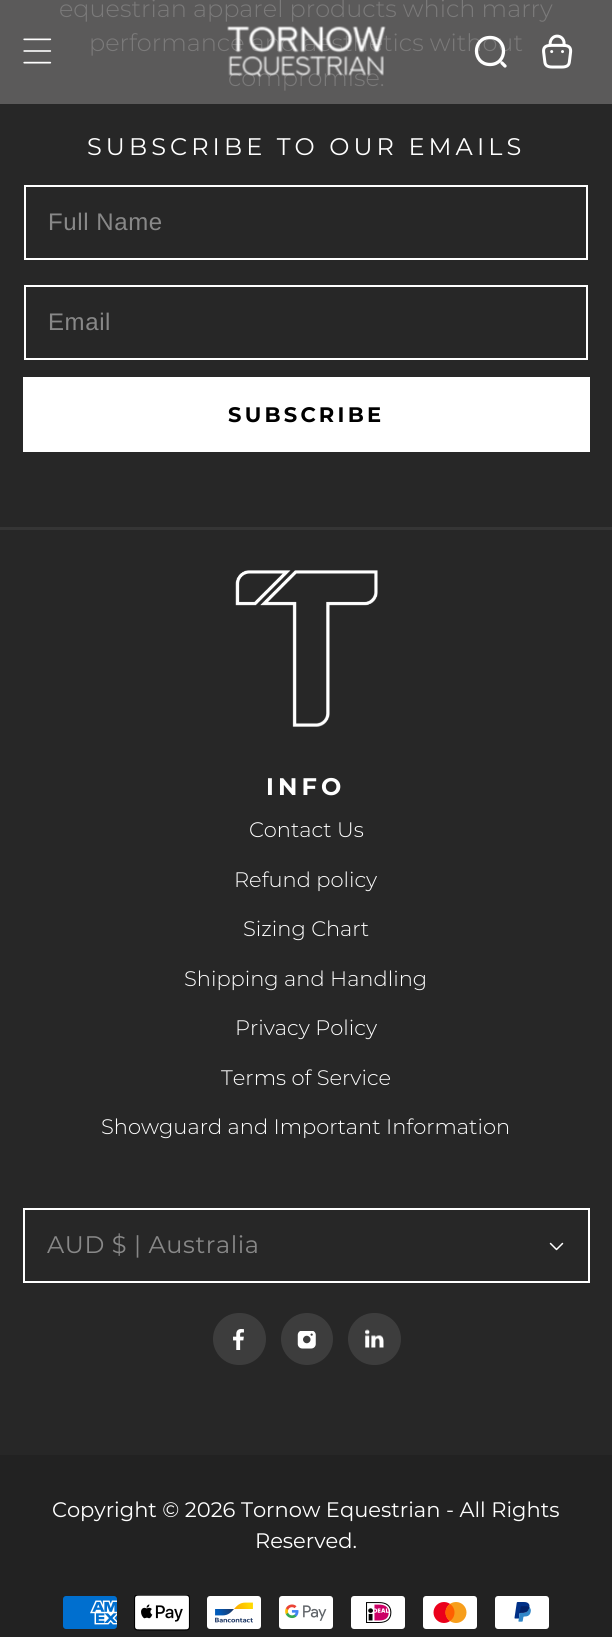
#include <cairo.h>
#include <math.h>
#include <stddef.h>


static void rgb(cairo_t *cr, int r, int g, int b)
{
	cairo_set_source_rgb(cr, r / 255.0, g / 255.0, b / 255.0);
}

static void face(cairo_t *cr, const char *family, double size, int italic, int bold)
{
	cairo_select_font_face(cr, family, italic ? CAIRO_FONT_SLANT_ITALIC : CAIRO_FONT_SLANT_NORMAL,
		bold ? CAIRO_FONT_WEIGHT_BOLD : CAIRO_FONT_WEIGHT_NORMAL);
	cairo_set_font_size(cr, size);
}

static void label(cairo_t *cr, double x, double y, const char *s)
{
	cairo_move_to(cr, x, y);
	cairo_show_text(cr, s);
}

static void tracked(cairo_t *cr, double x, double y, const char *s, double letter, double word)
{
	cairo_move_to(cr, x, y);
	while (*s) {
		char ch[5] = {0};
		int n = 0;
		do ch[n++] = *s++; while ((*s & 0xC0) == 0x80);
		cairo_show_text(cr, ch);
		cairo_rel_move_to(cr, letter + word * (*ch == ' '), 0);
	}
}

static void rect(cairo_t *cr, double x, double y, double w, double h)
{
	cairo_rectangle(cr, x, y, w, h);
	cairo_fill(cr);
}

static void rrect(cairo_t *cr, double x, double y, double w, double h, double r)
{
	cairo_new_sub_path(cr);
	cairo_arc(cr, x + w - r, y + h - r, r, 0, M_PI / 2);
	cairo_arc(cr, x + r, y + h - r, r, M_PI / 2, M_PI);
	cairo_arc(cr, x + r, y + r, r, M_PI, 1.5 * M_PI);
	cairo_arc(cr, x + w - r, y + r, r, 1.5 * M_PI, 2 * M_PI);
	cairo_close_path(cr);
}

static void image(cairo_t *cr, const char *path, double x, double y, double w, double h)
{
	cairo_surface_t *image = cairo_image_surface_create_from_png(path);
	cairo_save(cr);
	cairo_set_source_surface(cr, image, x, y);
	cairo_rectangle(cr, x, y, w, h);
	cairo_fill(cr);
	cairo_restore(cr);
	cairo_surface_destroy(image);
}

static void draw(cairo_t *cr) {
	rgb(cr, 39, 39, 39);
	cairo_paint(cr);
	rgb(cr, 91, 90, 90);
	rect(cr, 0, 0, 612, 104);
	rgb(cr, 53, 53, 53);
	rect(cr, 0, 527, 612, 3);
	face(cr, "Montserrat Light", 24, 0, 0);
	rgb(cr, 123, 122, 122);
	label(cr, 59, 17, "equestrian apparel products which marry");
	label(cr, 89, 51, "performance and aesthetics without");
	label(cr, 228, 86, "compromise.");
	face(cr, "Montserrat", 24, 0, 0);
	rgb(cr, 255, 255, 255);
	tracked(cr, 87, 155, "SUBSCRIBE TO OUR EMAILS", 4.1, 0);
	cairo_rectangle(cr, 25, 186, 562, 73);
	cairo_stroke(cr);
	face(cr, "Liberation Sans", 24, 0, 0);
	rgb(cr, 136, 136, 136);
	tracked(cr, 48, 230, "Full Name", 0.6, 0);
	cairo_rectangle(cr, 25, 286, 562, 73);
	rgb(cr, 255, 255, 255);
	cairo_stroke(cr);
	rgb(cr, 136, 136, 136);
	tracked(cr, 48, 330, "Email", 0.6, 0);
	rgb(cr, 255, 255, 255);
	rect(cr, 23, 377, 567, 75);
	face(cr, "Montserrat", 21, 0, 1);
	rgb(cr, 0, 0, 0);
	tracked(cr, 228, 422, "SUBSCRIBE", 3.25, 0);
	image(cr, "image0.png", 23, 38, 29, 26);
	image(cr, "image1.png", 227, 26, 159, 51);
	cairo_new_path(cr);
	cairo_move_to(cr, 490, 64.5);
	cairo_curve_to(cr, 508, 64.5, 508, 37.5, 490, 37.5);
	cairo_curve_to(cr, 472, 37.5, 472, 64.5, 490, 64.5);
	cairo_close_path(cr);
	cairo_move_to(cr, 505, 66);
	cairo_line_to(cr, 502, 63);
	rgb(cr, 255, 255, 255);
	cairo_set_line_width(cr, 3.3);
	cairo_set_line_cap(cr, CAIRO_LINE_CAP_ROUND);
	cairo_set_line_join(cr, CAIRO_LINE_JOIN_ROUND);
	cairo_stroke(cr);
	image(cr, "image2.png", 542, 34, 31, 35);
	image(cr, "image3.png", 235, 570, 143, 157);
	face(cr, "Montserrat", 24, 0, 1);
	tracked(cr, 266, 795, "INFO", 4.1, 0);
	face(cr, "Montserrat Light", 21, 0, 0);
	label(cr, 249, 837, "Contact Us");
	label(cr, 234, 887, "Refund policy");
	label(cr, 243, 936, "Sizing Chart");
	label(cr, 184, 986, "Shipping and Handling");
	label(cr, 235, 1035, "Privacy Policy");
	label(cr, 221, 1085, "Terms of Service");
	label(cr, 101, 1134, "Showguard and Important Information");
	cairo_rectangle(cr, 24, 1209, 565, 73);
	cairo_set_line_width(cr, 2);
	cairo_set_line_cap(cr, CAIRO_LINE_CAP_BUTT);
	cairo_set_line_join(cr, CAIRO_LINE_JOIN_MITER);
	cairo_stroke(cr);
	face(cr, "Montserrat", 24, 0, 0);
	rgb(cr, 136, 136, 136);
	tracked(cr, 47, 1253, "AUD $ | Australia", 0.6, 0);
	image(cr, "image4.png", 549, 1242, 15, 9);
	rgb(cr, 61, 61, 61);
	rrect(cr, 213, 1313, 53, 52, 26);
	cairo_fill(cr);
	image(cr, "image5.png", 233, 1329, 11, 21);
	cairo_arc(cr, 307, 1339, 26, 0, 2 * M_PI);
	cairo_fill(cr);
	image(cr, "image6.png", 297, 1331, 19, 18);
	rrect(cr, 348, 1313, 53, 52, 26);
	cairo_fill(cr);
	image(cr, "image7.png", 365, 1329, 19, 19);
	rgb(cr, 34, 34, 34);
	rect(cr, 0, 1455, 612, 182);
	face(cr, "Montserrat", 21, 0, 0);
	rgb(cr, 255, 255, 255);
	label(cr, 52, 1517, "Copyright © 2026 Tornow Equestrian - All Rights");
	label(cr, 255, 1548, "Reserved.");
	image(cr, "image8.png", 63, 1596, 54, 33);
	image(cr, "image9.png", 134, 1595, 56, 36);
	image(cr, "image10.png", 207, 1596, 54, 33);
	image(cr, "image11.png", 279, 1596, 54, 33);
	image(cr, "image12.png", 351, 1596, 54, 33);
	image(cr, "image13.png", 423, 1596, 54, 33);
	image(cr, "image14.png", 495, 1596, 54, 33);
}

int main(void) {
	cairo_surface_t *surface = cairo_image_surface_create(CAIRO_FORMAT_RGB24, 612, 1637);
	cairo_t *cr = cairo_create(surface);
	cairo_font_options_t *options = cairo_font_options_create();
	cairo_font_options_set_hint_metrics(options, CAIRO_HINT_METRICS_OFF);
	cairo_font_options_set_hint_style(options, CAIRO_HINT_STYLE_NONE);
	cairo_set_font_options(cr, options);
	cairo_set_miter_limit(cr, 4);
	draw(cr);
	cairo_surface_write_to_png(surface, "render.png");
	cairo_font_options_destroy(options);
	cairo_destroy(cr);
	cairo_surface_destroy(surface);
	return 0;
}
